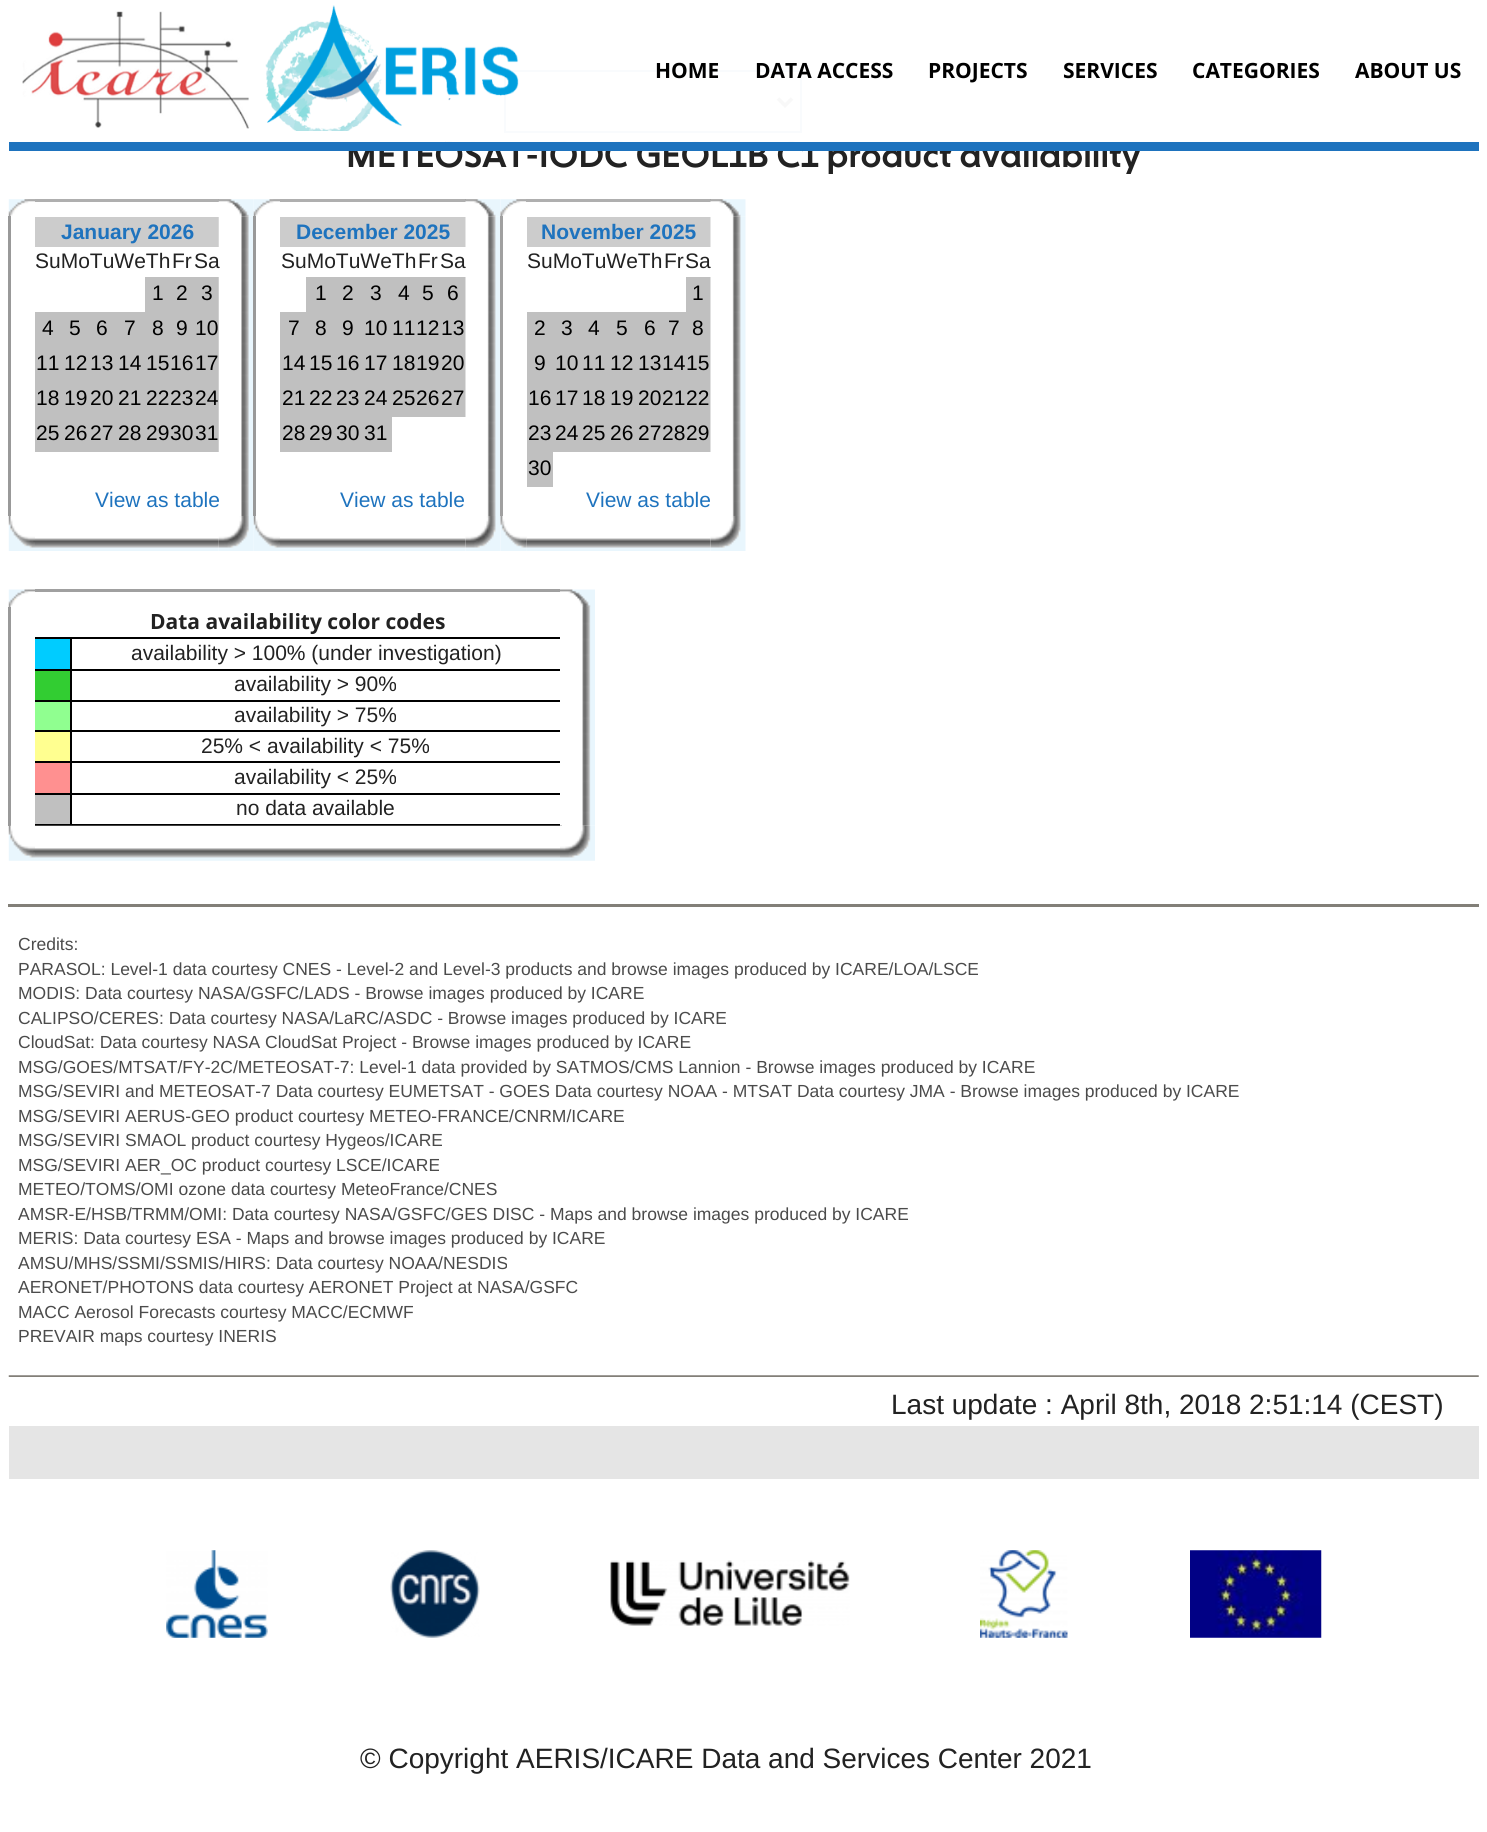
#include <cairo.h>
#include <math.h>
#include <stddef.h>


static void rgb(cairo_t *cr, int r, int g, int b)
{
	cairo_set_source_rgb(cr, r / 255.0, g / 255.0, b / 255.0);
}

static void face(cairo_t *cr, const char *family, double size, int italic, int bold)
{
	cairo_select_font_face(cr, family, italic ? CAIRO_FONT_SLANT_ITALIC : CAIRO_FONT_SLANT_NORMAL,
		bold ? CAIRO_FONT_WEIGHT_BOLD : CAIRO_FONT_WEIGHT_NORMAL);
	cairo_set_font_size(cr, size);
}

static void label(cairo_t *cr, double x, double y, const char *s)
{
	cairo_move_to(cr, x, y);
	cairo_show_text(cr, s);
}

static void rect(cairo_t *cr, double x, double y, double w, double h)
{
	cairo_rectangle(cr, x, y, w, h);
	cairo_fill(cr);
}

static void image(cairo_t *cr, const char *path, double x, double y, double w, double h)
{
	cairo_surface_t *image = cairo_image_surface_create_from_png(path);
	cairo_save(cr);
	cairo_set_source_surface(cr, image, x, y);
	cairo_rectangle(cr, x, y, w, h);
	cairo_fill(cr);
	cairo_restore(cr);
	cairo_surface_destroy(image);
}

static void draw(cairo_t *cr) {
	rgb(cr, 255, 255, 255);
	cairo_paint(cr);
	rgb(cr, 239, 239, 239);
	cairo_rectangle(cr, 505, 71, 296, 61);
	cairo_fill_preserve(cr);
	rgb(cr, 30, 115, 190);
	cairo_stroke(cr);
	cairo_new_path(cr);
	cairo_move_to(cr, 778, 98.5);
	cairo_line_to(cr, 785, 105.5);
	cairo_line_to(cr, 792, 98.5);
	rgb(cr, 0, 0, 0);
	cairo_set_line_width(cr, 3.5);
	cairo_stroke(cr);
	face(cr, "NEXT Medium", 35, 0, 0);
	rgb(cr, 34, 34, 34);
	label(cr, 346, 167, "METEOSAT-IODC GEOL1B C1 product availability");
	cairo_set_source_rgba(cr, 1, 1, 1, 0.97);
	rect(cr, 446, 70, 356, 72);
	rgb(cr, 30, 115, 190);
	rect(cr, 9, 142, 1470, 9);
	image(cr, "image0.png", 22, 5, 497, 126);
	face(cr, "Open Sans", 21, 0, 1);
	rgb(cr, 0, 0, 0);
	label(cr, 655, 78, "HOME");
	label(cr, 755, 78, "DATA ACCESS");
	label(cr, 928, 78, "PROJECTS");
	label(cr, 1063, 78, "SERVICES");
	label(cr, 1192, 78, "CATEGORIES");
	label(cr, 1355, 78, "ABOUT US");
	image(cr, "image1.png", 8, 199, 27, 18);
	rgb(cr, 175, 175, 175);
	rect(cr, 35, 199, 184, 3);
	image(cr, "image2.png", 218, 199, 36, 18);
	rgb(cr, 153, 153, 153);
	rect(cr, 8, 216, 3, 300);
	rgb(cr, 204, 204, 204);
	rect(cr, 35, 217, 184, 30);
	face(cr, "Liberation Sans", 21, 0, 1);
	rgb(cr, 30, 115, 190);
	label(cr, 61, 239, "January 2026");
	face(cr, "Liberation Sans", 21, 0, 0);
	rgb(cr, 34, 34, 34);
	label(cr, 35, 268, "SuMoTuWeTh");
	label(cr, 172, 268, "Fr");
	rgb(cr, 192, 192, 192);
	rect(cr, 145, 277, 74, 35);
	rect(cr, 35, 312, 184, 35);
	rect(cr, 35, 347, 184, 35);
	rect(cr, 35, 382, 184, 35);
	rect(cr, 35, 417, 184, 35);
	image(cr, "image3.png", 218, 216, 35, 300);
	rgb(cr, 34, 34, 34);
	label(cr, 194, 268, "Sa");
	rgb(cr, 0, 0, 0);
	label(cr, 152, 300, "1");
	label(cr, 176, 300, "2");
	label(cr, 201, 300, "3");
	label(cr, 42, 335, "4");
	label(cr, 69, 335, "5");
	label(cr, 96, 335, "6");
	label(cr, 124, 335, "7");
	label(cr, 152, 335, "8");
	label(cr, 176, 335, "9");
	label(cr, 195, 335, "10");
	label(cr, 36, 370, "11");
	label(cr, 64, 370, "12");
	label(cr, 90, 370, "13");
	label(cr, 118, 370, "14");
	label(cr, 146, 370, "15");
	label(cr, 170, 370, "16");
	label(cr, 195, 370, "17");
	label(cr, 36, 405, "18");
	label(cr, 64, 405, "19");
	label(cr, 90, 405, "20");
	label(cr, 118, 405, "21");
	label(cr, 146, 405, "22");
	label(cr, 170, 405, "23");
	label(cr, 195, 405, "24");
	label(cr, 36, 440, "25");
	label(cr, 64, 440, "26");
	label(cr, 90, 440, "27");
	label(cr, 118, 440, "28");
	label(cr, 146, 440, "29");
	label(cr, 170, 440, "30");
	label(cr, 195, 440, "31");
	rgb(cr, 30, 115, 190);
	label(cr, 95, 507, "View as table");
	image(cr, "image4.png", 8, 516, 27, 35);
	image(cr, "image5.png", 35, 538, 184, 13);
	image(cr, "image6.png", 218, 516, 36, 35);
	image(cr, "image7.png", 253, 199, 27, 18);
	rgb(cr, 175, 175, 175);
	rect(cr, 280, 199, 186, 3);
	image(cr, "image8.png", 465, 199, 36, 18);
	rgb(cr, 153, 153, 153);
	rect(cr, 253, 216, 3, 300);
	rgb(cr, 204, 204, 204);
	rect(cr, 280, 217, 186, 30);
	face(cr, "Liberation Sans", 21, 0, 1);
	rgb(cr, 30, 115, 190);
	label(cr, 296, 239, "December 2025");
	face(cr, "Liberation Sans", 21, 0, 0);
	rgb(cr, 34, 34, 34);
	label(cr, 281, 268, "SuMoTuWeTh");
	label(cr, 418, 268, "Fr");
	rgb(cr, 192, 192, 192);
	rect(cr, 306, 277, 160, 35);
	rect(cr, 280, 312, 186, 35);
	rect(cr, 280, 347, 186, 35);
	rect(cr, 280, 382, 186, 35);
	image(cr, "image9.png", 465, 216, 35, 300);
	rgb(cr, 34, 34, 34);
	label(cr, 440, 268, "Sa");
	rgb(cr, 0, 0, 0);
	label(cr, 315, 300, "1");
	label(cr, 342, 300, "2");
	label(cr, 370, 300, "3");
	label(cr, 398, 300, "4");
	label(cr, 422, 300, "5");
	label(cr, 447, 300, "6");
	label(cr, 288, 335, "7");
	label(cr, 315, 335, "8");
	label(cr, 342, 335, "9");
	label(cr, 364, 335, "10");
	label(cr, 392, 335, "11");
	label(cr, 416, 335, "12");
	label(cr, 441, 335, "13");
	label(cr, 282, 370, "14");
	label(cr, 309, 370, "15");
	label(cr, 336, 370, "16");
	label(cr, 364, 370, "17");
	label(cr, 392, 370, "18");
	label(cr, 416, 370, "19");
	label(cr, 441, 370, "20");
	label(cr, 282, 405, "21");
	label(cr, 309, 405, "22");
	label(cr, 336, 405, "23");
	label(cr, 364, 405, "24");
	label(cr, 392, 405, "25");
	label(cr, 416, 405, "26");
	label(cr, 441, 405, "27");
	rgb(cr, 192, 192, 192);
	rect(cr, 280, 417, 112, 35);
	rgb(cr, 0, 0, 0);
	label(cr, 282, 440, "28");
	label(cr, 309, 440, "29");
	label(cr, 336, 440, "30");
	label(cr, 364, 440, "31");
	rgb(cr, 30, 115, 190);
	label(cr, 340, 507, "View as table");
	image(cr, "image10.png", 253, 516, 27, 35);
	image(cr, "image11.png", 280, 538, 186, 13);
	image(cr, "image12.png", 465, 516, 36, 35);
	image(cr, "image13.png", 500, 199, 27, 18);
	rgb(cr, 175, 175, 175);
	rect(cr, 526, 199, 185, 3);
	image(cr, "image8.png", 710, 199, 36, 18);
	rgb(cr, 160, 160, 160);
	rect(cr, 500, 216, 3, 300);
	rgb(cr, 204, 204, 204);
	rect(cr, 527, 217, 184, 30);
	face(cr, "Liberation Sans", 21, 0, 1);
	rgb(cr, 30, 115, 190);
	label(cr, 541, 239, "November 2025");
	face(cr, "Liberation Sans", 21, 0, 0);
	rgb(cr, 34, 34, 34);
	label(cr, 527, 268, "SuMoTuWeTh");
	label(cr, 664, 268, "Fr");
	rgb(cr, 192, 192, 192);
	rect(cr, 686, 277, 25, 35);
	rect(cr, 527, 312, 184, 35);
	rect(cr, 527, 347, 184, 35);
	rect(cr, 527, 382, 184, 35);
	rect(cr, 527, 417, 184, 35);
	image(cr, "image14.png", 710, 216, 36, 300);
	rgb(cr, 34, 34, 34);
	label(cr, 685, 268, "Sa");
	rgb(cr, 0, 0, 0);
	label(cr, 692, 300, "1");
	label(cr, 534, 335, "2");
	label(cr, 561, 335, "3");
	label(cr, 588, 335, "4");
	label(cr, 616, 335, "5");
	label(cr, 644, 335, "6");
	label(cr, 668, 335, "7");
	label(cr, 692, 335, "8");
	label(cr, 534, 370, "9");
	label(cr, 555, 370, "10");
	label(cr, 582, 370, "11");
	label(cr, 610, 370, "12");
	label(cr, 638, 370, "13");
	label(cr, 662, 370, "14");
	label(cr, 686, 370, "15");
	label(cr, 528, 405, "16");
	label(cr, 555, 405, "17");
	label(cr, 582, 405, "18");
	label(cr, 610, 405, "19");
	label(cr, 638, 405, "20");
	label(cr, 662, 405, "21");
	label(cr, 686, 405, "22");
	label(cr, 528, 440, "23");
	label(cr, 555, 440, "24");
	label(cr, 582, 440, "25");
	label(cr, 610, 440, "26");
	label(cr, 638, 440, "27");
	label(cr, 662, 440, "28");
	label(cr, 686, 440, "29");
	rgb(cr, 192, 192, 192);
	rect(cr, 527, 452, 26, 35);
	rgb(cr, 0, 0, 0);
	label(cr, 528, 475, "30");
	rgb(cr, 30, 115, 190);
	label(cr, 586, 507, "View as table");
	image(cr, "image15.png", 500, 516, 27, 35);
	image(cr, "image16.png", 526, 538, 185, 13);
	image(cr, "image12.png", 710, 516, 36, 35);
	image(cr, "image17.png", 8, 589, 27, 18);
	rgb(cr, 160, 160, 160);
	rect(cr, 35, 589, 525, 3);
	image(cr, "image18.png", 560, 589, 35, 18);
	rgb(cr, 153, 153, 153);
	rect(cr, 8, 607, 3, 219);
	face(cr, "Open Sans", 21, 0, 1);
	rgb(cr, 34, 34, 34);
	label(cr, 150, 629, "Data availability color codes");
	rgb(cr, 0, 204, 255);
	rect(cr, 35, 639, 35, 30);
	rgb(cr, 0, 0, 0);
	rect(cr, 70, 637, 492, 2);
	rect(cr, 70, 669, 492, 2);
	rect(cr, 70, 700, 492, 2);
	rect(cr, 70, 730, 492, 2);
	rect(cr, 70, 761, 492, 2);
	rect(cr, 70, 793, 492, 2);
	rect(cr, 70, 824, 492, 2);
	rect(cr, 70, 793, 2, 33);
	rect(cr, 35, 793, 37, 2);
	rect(cr, 70, 761, 2, 34);
	rect(cr, 35, 761, 37, 2);
	rect(cr, 70, 730, 2, 33);
	rect(cr, 35, 730, 37, 2);
	rect(cr, 70, 700, 2, 32);
	rect(cr, 35, 700, 37, 2);
	rect(cr, 70, 669, 2, 33);
	rect(cr, 35, 669, 37, 2);
	rect(cr, 70, 637, 2, 33);
	rect(cr, 35, 637, 37, 2);
	face(cr, "Liberation Sans", 21, 0, 0);
	rgb(cr, 34, 34, 34);
	label(cr, 131, 660, "availability > 100% (under investigation)");
	rgb(cr, 50, 205, 50);
	rect(cr, 35, 671, 35, 29);
	rgb(cr, 34, 34, 34);
	label(cr, 234, 691, "availability > 90%");
	rgb(cr, 144, 255, 144);
	rect(cr, 35, 702, 35, 28);
	rgb(cr, 34, 34, 34);
	label(cr, 234, 722, "availability > 75%");
	rgb(cr, 255, 255, 144);
	rect(cr, 35, 732, 35, 29);
	rgb(cr, 34, 34, 34);
	label(cr, 201, 753, "25% < availability < 75%");
	rgb(cr, 255, 144, 144);
	rect(cr, 35, 763, 35, 30);
	rgb(cr, 34, 34, 34);
	label(cr, 234, 784, "availability < 25%");
	rgb(cr, 192, 192, 192);
	rect(cr, 35, 795, 35, 29);
	rgb(cr, 0, 0, 0);
	rect(cr, 35, 824, 37, 2);
	rgb(cr, 34, 34, 34);
	label(cr, 236, 815, "no data available");
	image(cr, "image19.png", 560, 607, 35, 219);
	image(cr, "image20.png", 8, 825, 27, 36);
	image(cr, "image21.png", 35, 825, 525, 36);
	image(cr, "image22.png", 560, 825, 35, 36);
	rgb(cr, 130, 127, 120);
	rect(cr, 8, 904, 1471, 3);
	face(cr, "Liberation Sans", 17.5, 0, 0);
	rgb(cr, 75, 75, 75);
	label(cr, 18, 950, "Credits:");
	label(cr, 18, 975, "PARASOL: Level-1 data courtesy CNES - Level-2 and Level-3 products and browse images produced by ICARE/LOA/LSCE");
	label(cr, 18, 999, "MODIS: Data courtesy NASA/GSFC/LADS - Browse images produced by ICARE");
	label(cr, 18, 1024, "CALIPSO/CERES: Data courtesy NASA/LaRC/ASDC - Browse images produced by ICARE");
	label(cr, 18, 1048, "CloudSat: Data courtesy NASA CloudSat Project - Browse images produced by ICARE");
	label(cr, 18, 1073, "MSG/GOES/MTSAT/FY-2C/METEOSAT-7: Level-1 data provided by SATMOS/CMS Lannion - Browse images produced by ICARE");
	label(cr, 18, 1097, "MSG/SEVIRI and METEOSAT-7 Data courtesy EUMETSAT - GOES Data courtesy NOAA - MTSAT Data courtesy JMA - Browse images produced by ICARE");
	label(cr, 18, 1122, "MSG/SEVIRI AERUS-GEO product courtesy METEO-FRANCE/CNRM/ICARE");
	label(cr, 18, 1146, "MSG/SEVIRI SMAOL product courtesy Hygeos/ICARE");
	label(cr, 18, 1171, "MSG/SEVIRI AER_OC product courtesy LSCE/ICARE");
	label(cr, 18, 1195, "METEO/TOMS/OMI ozone data courtesy MeteoFrance/CNES");
	label(cr, 18, 1220, "AMSR-E/HSB/TRMM/OMI: Data courtesy NASA/GSFC/GES DISC - Maps and browse images produced by ICARE");
	label(cr, 18, 1244, "MERIS: Data courtesy ESA - Maps and browse images produced by ICARE");
	label(cr, 18, 1269, "AMSU/MHS/SSMI/SSMIS/HIRS: Data courtesy NOAA/NESDIS");
	label(cr, 18, 1293, "AERONET/PHOTONS data courtesy AERONET Project at NASA/GSFC");
	label(cr, 18, 1318, "MACC Aerosol Forecasts courtesy MACC/ECMWF");
	label(cr, 18, 1342, "PREVAIR maps courtesy INERIS");
	image(cr, "image23.png", 8, 1375, 1471, 2);
	face(cr, "Liberation Sans", 28, 0, 0);
	rgb(cr, 34, 34, 34);
	label(cr, 891, 1414, "Last update : April 8th, 2018 2:51:14 (CEST)");
	rgb(cr, 229, 229, 229);
	rect(cr, 9, 1426, 1470, 53);
	image(cr, "image24.png", 166, 1550, 102, 88);
	image(cr, "image25.png", 390, 1550, 90, 88);
	image(cr, "image26.png", 610, 1560, 240, 66);
	image(cr, "image27.png", 980, 1550, 88, 88);
	image(cr, "image28.png", 1190, 1550, 132, 88);
	rgb(cr, 34, 34, 34);
	label(cr, 360, 1768, "© Copyright AERIS/ICARE Data and Services Center 2021");
}

int main(void) {
	cairo_surface_t *surface = cairo_image_surface_create(CAIRO_FORMAT_RGB24, 1487, 1832);
	cairo_t *cr = cairo_create(surface);
	cairo_font_options_t *options = cairo_font_options_create();
	cairo_font_options_set_hint_metrics(options, CAIRO_HINT_METRICS_OFF);
	cairo_font_options_set_hint_style(options, CAIRO_HINT_STYLE_NONE);
	cairo_set_font_options(cr, options);
	cairo_set_miter_limit(cr, 4);
	draw(cr);
	cairo_surface_write_to_png(surface, "render.png");
	cairo_font_options_destroy(options);
	cairo_destroy(cr);
	cairo_surface_destroy(surface);
	return 0;
}
